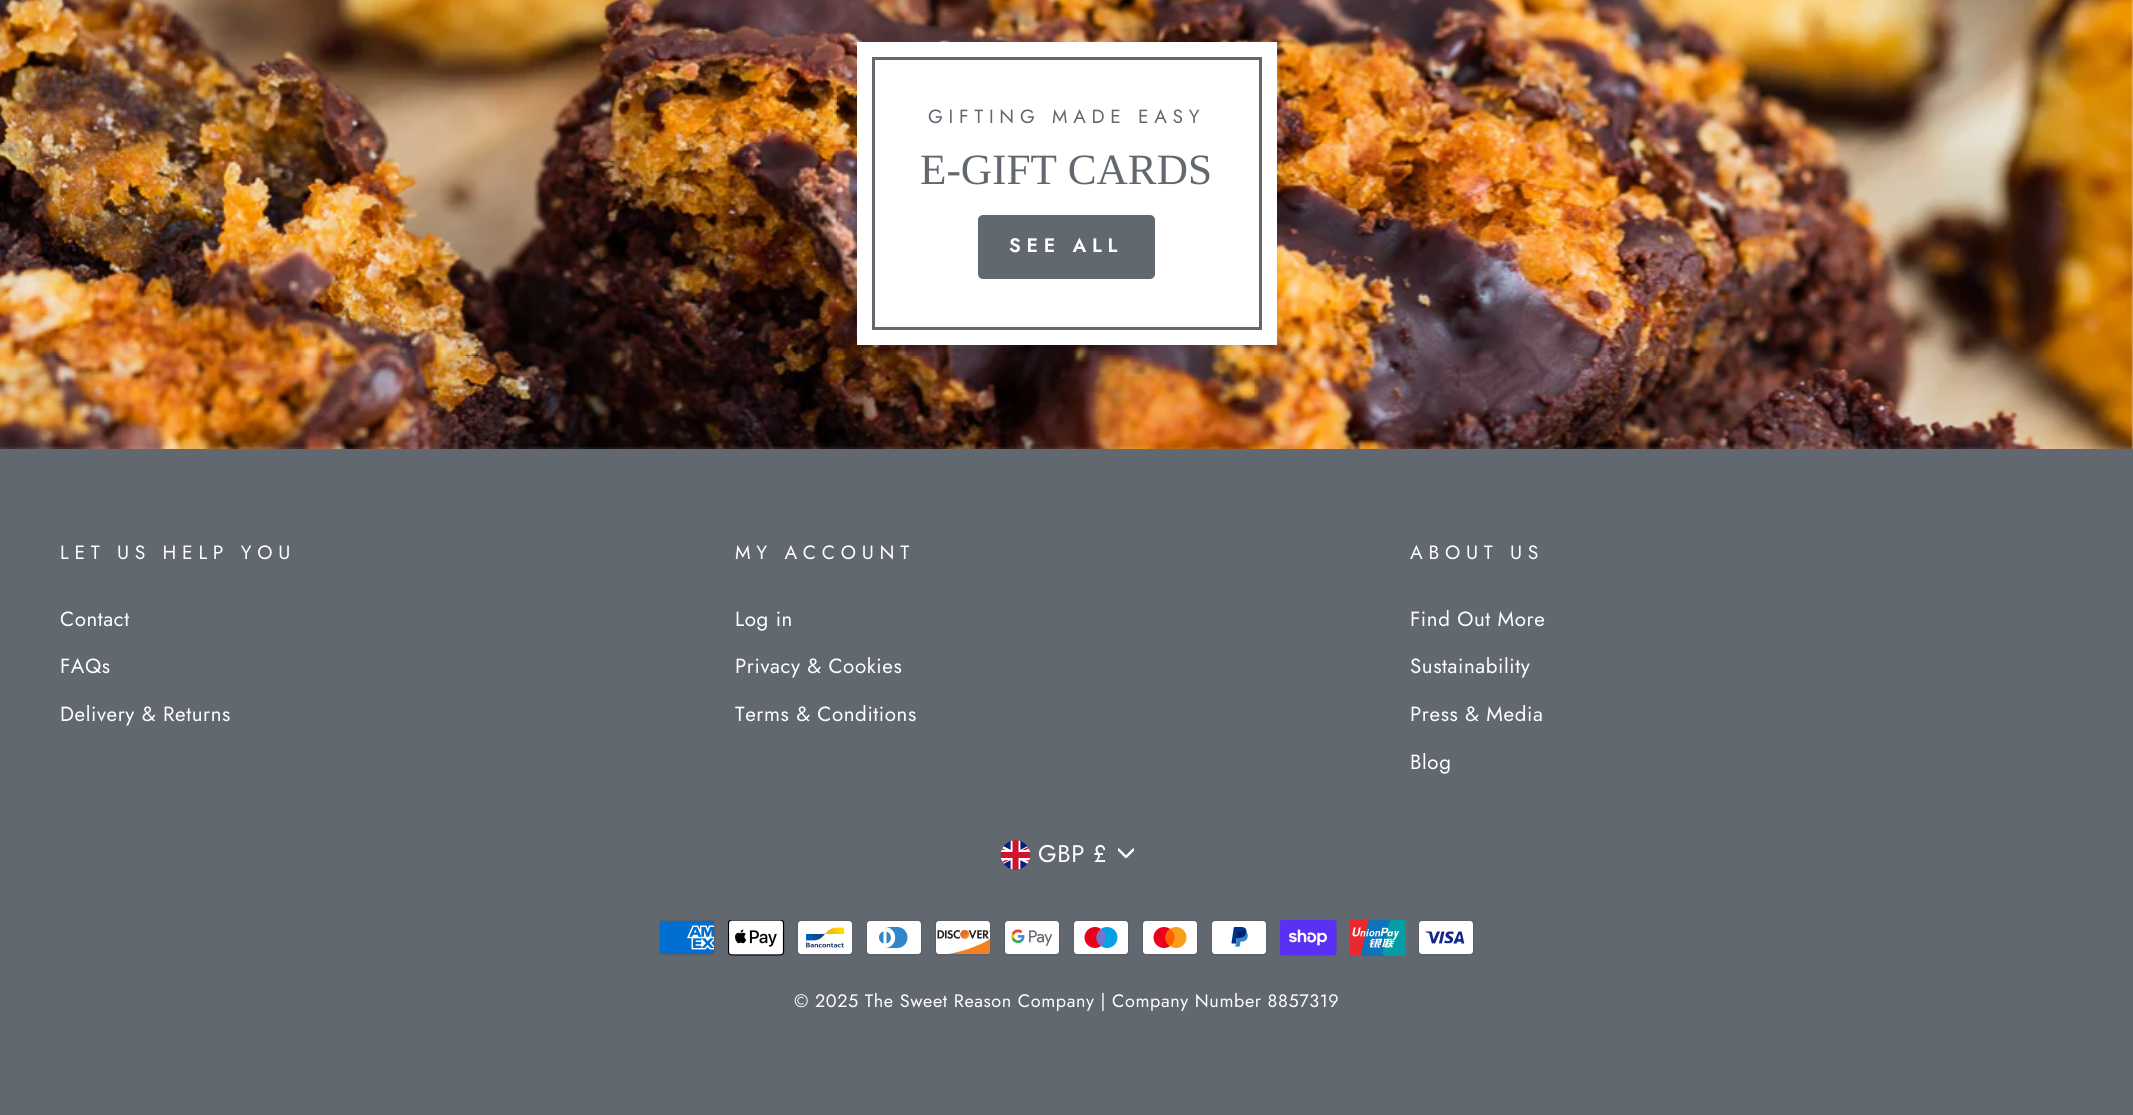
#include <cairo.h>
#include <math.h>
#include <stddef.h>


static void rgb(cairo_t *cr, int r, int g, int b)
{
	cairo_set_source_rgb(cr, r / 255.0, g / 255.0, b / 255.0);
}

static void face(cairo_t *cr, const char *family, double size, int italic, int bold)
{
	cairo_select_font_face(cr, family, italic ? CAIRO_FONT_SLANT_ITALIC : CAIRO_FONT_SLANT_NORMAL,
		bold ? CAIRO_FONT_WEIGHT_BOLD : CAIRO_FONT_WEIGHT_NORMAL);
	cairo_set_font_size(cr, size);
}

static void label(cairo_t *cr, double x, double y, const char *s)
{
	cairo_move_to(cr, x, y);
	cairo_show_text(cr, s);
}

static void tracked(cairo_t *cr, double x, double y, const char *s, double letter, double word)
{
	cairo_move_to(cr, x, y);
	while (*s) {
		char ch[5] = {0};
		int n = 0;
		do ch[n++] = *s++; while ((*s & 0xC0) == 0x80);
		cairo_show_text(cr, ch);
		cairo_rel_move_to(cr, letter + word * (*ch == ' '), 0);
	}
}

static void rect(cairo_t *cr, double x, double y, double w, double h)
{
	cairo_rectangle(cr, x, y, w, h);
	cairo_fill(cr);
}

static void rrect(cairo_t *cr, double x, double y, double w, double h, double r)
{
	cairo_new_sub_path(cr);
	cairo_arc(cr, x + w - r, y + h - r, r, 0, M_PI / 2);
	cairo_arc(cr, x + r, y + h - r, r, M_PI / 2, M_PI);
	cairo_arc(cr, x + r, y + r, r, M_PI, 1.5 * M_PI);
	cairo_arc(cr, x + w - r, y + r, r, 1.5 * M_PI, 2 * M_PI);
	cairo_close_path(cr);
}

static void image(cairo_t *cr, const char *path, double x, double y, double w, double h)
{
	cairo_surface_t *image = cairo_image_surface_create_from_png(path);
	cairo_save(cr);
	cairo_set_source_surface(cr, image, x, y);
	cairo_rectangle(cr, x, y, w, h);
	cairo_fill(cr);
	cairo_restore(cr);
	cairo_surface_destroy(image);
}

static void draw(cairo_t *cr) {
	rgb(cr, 255, 255, 255);
	cairo_paint(cr);
	image(cr, "image0.png", 0, 0, 2133, 449);
	rgb(cr, 255, 255, 255);
	rect(cr, 857, 42, 420, 303);
	cairo_rectangle(cr, 873.5, 58.5, 387, 270);
	rgb(cr, 97, 104, 112);
	cairo_set_line_width(cr, 3);
	cairo_stroke(cr);
	face(cr, "Jost", 19.1, 0, 0);
	tracked(cr, 928, 123, "GIFTING MADE EASY", 5.75, 0);
	face(cr, "Liberation Serif", 43.25, 0, 0);
	label(cr, 920, 184, "E-GIFT CARDS");
	rrect(cr, 978, 215, 177, 64, 5);
	cairo_fill(cr);
	face(cr, "Jost SemiBold", 19.5, 0, 0);
	rgb(cr, 255, 255, 255);
	tracked(cr, 1009, 252, "SEE ALL", 5.75, 0);
	rgb(cr, 97, 104, 112);
	rect(cr, 0, 449, 2133, 666);
	face(cr, "Jost", 19.25, 0, 0);
	rgb(cr, 255, 255, 255);
	tracked(cr, 60, 559, "LET US HELP YOU", 5.75, 0);
	face(cr, "Jost", 20.5, 0, 0);
	tracked(cr, 60, 626, "Contact", 0.6, 0);
	tracked(cr, 60, 673, "FAQs", 0.6, 0);
	tracked(cr, 60, 721, "Delivery & Returns", 0.6, 0);
	face(cr, "Jost", 19.25, 0, 0);
	tracked(cr, 735, 559, "MY ACCOUNT", 5.75, 0);
	face(cr, "Jost", 20.5, 0, 0);
	tracked(cr, 735, 626, "Log in", 0.6, 0);
	tracked(cr, 735, 673, "Privacy & Cookies", 0.6, 0);
	tracked(cr, 735, 721, "Terms & Conditions", 0.6, 0);
	face(cr, "Jost", 19.25, 0, 0);
	tracked(cr, 1410, 559, "ABOUT US", 5.75, 0);
	face(cr, "Jost", 20.5, 0, 0);
	tracked(cr, 1410, 626, "Find Out More", 0.6, 0);
	tracked(cr, 1410, 673, "Sustainability", 0.6, 0);
	tracked(cr, 1410, 721, "Press & Media", 0.6, 0);
	tracked(cr, 1410, 769, "Blog", 0.6, 0);
	image(cr, "image1.png", 1000, 840, 31, 30);
	face(cr, "Jost", 24, 0, 0);
	tracked(cr, 1038, 862, "GBP £", 0.6, 0);
	cairo_save(cr);
	cairo_rectangle(cr, 1118, 846, 16, 17);
	cairo_clip(cr);
	cairo_new_path(cr);
	cairo_move_to(cr, 1118.5, 849.5);
	cairo_line_to(cr, 1126, 857);
	cairo_line_to(cr, 1133.5, 849.5);
	cairo_set_line_width(cr, 2.4);
	cairo_set_line_cap(cr, CAIRO_LINE_CAP_ROUND);
	cairo_set_line_join(cr, CAIRO_LINE_JOIN_ROUND);
	cairo_stroke(cr);
	cairo_restore(cr);
	image(cr, "image2.png", 659, 920, 56, 36);
	image(cr, "image3.png", 728, 920, 57, 36);
	image(cr, "image4.png", 797, 920, 56, 36);
	image(cr, "image5.png", 866, 920, 56, 36);
	image(cr, "image6.png", 935, 920, 56, 36);
	image(cr, "image7.png", 1004, 920, 56, 36);
	image(cr, "image8.png", 1073, 920, 56, 36);
	image(cr, "image9.png", 1142, 920, 56, 36);
	image(cr, "image10.png", 1211, 920, 56, 36);
	image(cr, "image11.png", 1280, 920, 57, 36);
	image(cr, "image12.png", 1349, 920, 57, 36);
	image(cr, "image13.png", 1418, 920, 56, 36);
	face(cr, "Jost", 18, 0, 0);
	tracked(cr, 794, 1007, "© 2025 The Sweet Reason Company | Company Number 8857319", 0.6, 0);
}

int main(void) {
	cairo_surface_t *surface = cairo_image_surface_create(CAIRO_FORMAT_RGB24, 2133, 1115);
	cairo_t *cr = cairo_create(surface);
	cairo_font_options_t *options = cairo_font_options_create();
	cairo_font_options_set_hint_metrics(options, CAIRO_HINT_METRICS_OFF);
	cairo_font_options_set_hint_style(options, CAIRO_HINT_STYLE_NONE);
	cairo_set_font_options(cr, options);
	cairo_set_miter_limit(cr, 4);
	draw(cr);
	cairo_surface_write_to_png(surface, "render.png");
	cairo_font_options_destroy(options);
	cairo_destroy(cr);
	cairo_surface_destroy(surface);
	return 0;
}
